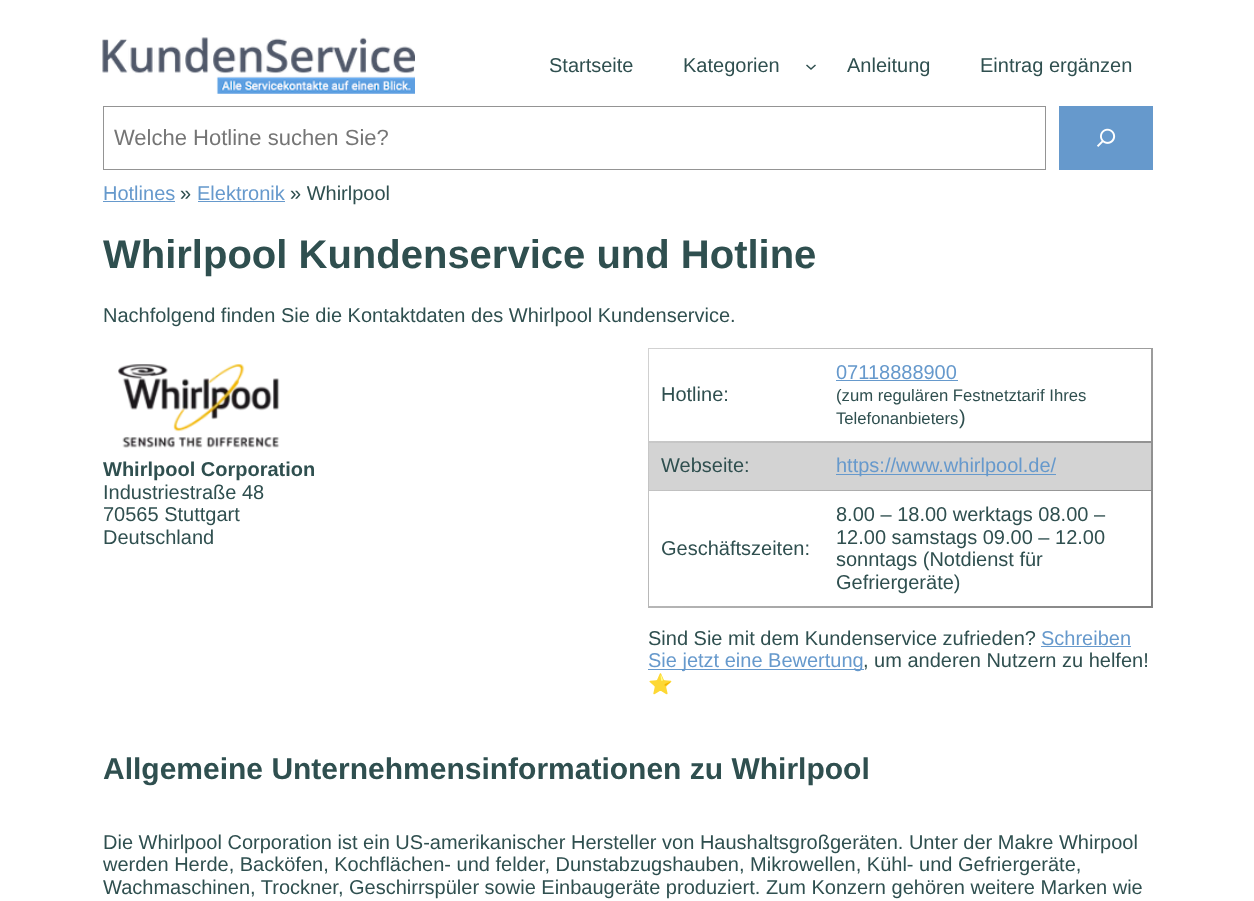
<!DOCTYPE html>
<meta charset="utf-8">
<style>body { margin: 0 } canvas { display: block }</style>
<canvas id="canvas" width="1254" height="901"></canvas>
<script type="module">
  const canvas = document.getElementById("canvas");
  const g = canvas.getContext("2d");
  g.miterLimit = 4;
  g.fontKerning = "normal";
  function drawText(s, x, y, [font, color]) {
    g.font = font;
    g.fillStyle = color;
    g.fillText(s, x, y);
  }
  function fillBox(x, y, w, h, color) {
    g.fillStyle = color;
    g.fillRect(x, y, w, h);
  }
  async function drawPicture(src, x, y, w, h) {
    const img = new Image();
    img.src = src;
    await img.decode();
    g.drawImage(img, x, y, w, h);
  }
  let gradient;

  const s1 = ["20px Liberation Sans", "#2F4F4F"];
  const s2 = ["22px Liberation Sans", "#757575"];
  const s3 = ["20px Liberation Sans", "#6699CC"];
  const s4 = ["bold 40px Liberation Sans", "#2F4F4F"];
  const s5 = ["bold 20px Liberation Sans", "#2F4F4F"];
  const s6 = ["16.7px Liberation Sans", "#2F4F4F"];
  const s7 = ["20px Noto Color Emoji", "#2F4F4F"];
  const s8 = ["bold 30px Liberation Sans", "#2F4F4F"];

  fillBox(0, 0, 1254, 901, "#FFFFFF");
  await drawPicture("pic1.png", 102, 37, 313, 57);
  drawText("Startseite", 549, 72, s1);
  drawText("Kategorien", 683, 72, s1);
  g.beginPath();
  g.moveTo(806.5, 65);
  g.lineTo(811, 69);
  g.lineTo(815.5, 65);
  g.strokeStyle = "#2F4F4F";
  g.lineWidth = 1.5;
  g.stroke();
  drawText("Anleitung", 847, 72, s1);
  drawText("Eintrag ergänzen", 980, 72, s1);
  g.strokeStyle = "#949494";
  g.lineWidth = 1;
  g.strokeRect(103.5, 106.5, 942, 63);
  drawText("Welche Hotline suchen Sie?", 114, 145, s2);
  fillBox(1059, 106, 94, 64, "#6699CC");
  await drawPicture("pic2.png", 1097, 128, 19, 19);
  drawText("Hotlines", 103, 200, s3);
  fillBox(103, 201, 72, 1, "#6699CC");
  drawText("»", 180, 200, s1);
  drawText("Elektronik", 197, 200, s3);
  fillBox(198, 201, 87, 1, "#6699CC");
  drawText("» Whirlpool", 290, 200, s1);
  drawText("Whirlpool Kundenservice und Hotline", 103, 268, s4);
  drawText("Nachfolgend finden Sie die Kontaktdaten des Whirlpool Kundenservice.", 103, 322, s1);
  await drawPicture("pic3.png", 118, 364, 162, 84);
  drawText("Whirlpool Corporation", 103, 476, s5);
  drawText("Industriestraße 48", 103, 499, s1);
  drawText("70565 Stuttgart", 103, 521, s1);
  drawText("Deutschland", 103, 544, s1);
  gradient = g.createLinearGradient(709, 286, 1091, 669);
  gradient.addColorStop(0, "#D3D3D3");
  gradient.addColorStop(1, "#808080");
  g.fillStyle = gradient;
  g.fillRect(648, 348, 505, 260);
  fillBox(649, 349, 502, 92, "#FFFFFF");
  drawText("Hotline:", 661, 401, s1);
  drawText("07118888900", 836, 379, s3);
  fillBox(836, 380, 122, 1, "#6699CC");
  drawText("(zum regulären Festnetztarif Ihres", 836, 401, s6);
  drawText("Telefonanbieters", 836, 424, s6);
  drawText(")", 959, 424, s1);
  fillBox(649, 443, 502, 47, "#D3D3D3");
  drawText("Webseite:", 661, 472, s1);
  fillBox(836, 474, 220, 1, "#6699CC");
  drawText("https://www.whirlpool.de/", 836, 472, s3);
  fillBox(649, 491, 502, 115, "#FFFFFF");
  drawText("Geschäftszeiten:", 661, 555, s1);
  drawText("8.00 – 18.00 werktags 08.00 –", 836, 521, s1);
  drawText("12.00 samstags 09.00 – 12.00", 836, 544, s1);
  drawText("sonntags (Notdienst für", 836, 566, s1);
  drawText("Gefriergeräte)", 836, 589, s1);
  drawText("Sind Sie mit dem Kundenservice zufrieden?", 648, 645, s1);
  drawText("Schreiben", 1041, 645, s3);
  fillBox(1041, 646, 90, 1, "#6699CC");
  fillBox(648, 669, 216, 1, "#6699CC");
  drawText("Sie jetzt eine Bewertung", 648, 667, s3);
  drawText(", um anderen Nutzern zu helfen!", 863, 667, s1);
  drawText("⭐️", 648, 691, s7);
  drawText("Allgemeine Unternehmensinformationen zu Whirlpool", 103, 779, s8);
  drawText("Die Whirlpool Corporation ist ein US-amerikanischer Hersteller von Haushaltsgroßgeräten. Unter der Makre Whirpool", 103, 849, s1);
  drawText("werden Herde, Backöfen, Kochflächen- und felder, Dunstabzugshauben, Mikrowellen, Kühl- und Gefriergeräte,", 103, 871, s1);
  drawText("Wachmaschinen, Trockner, Geschirrspüler sowie Einbaugeräte produziert. Zum Konzern gehören weitere Marken wie", 103, 894, s1);
</script>
